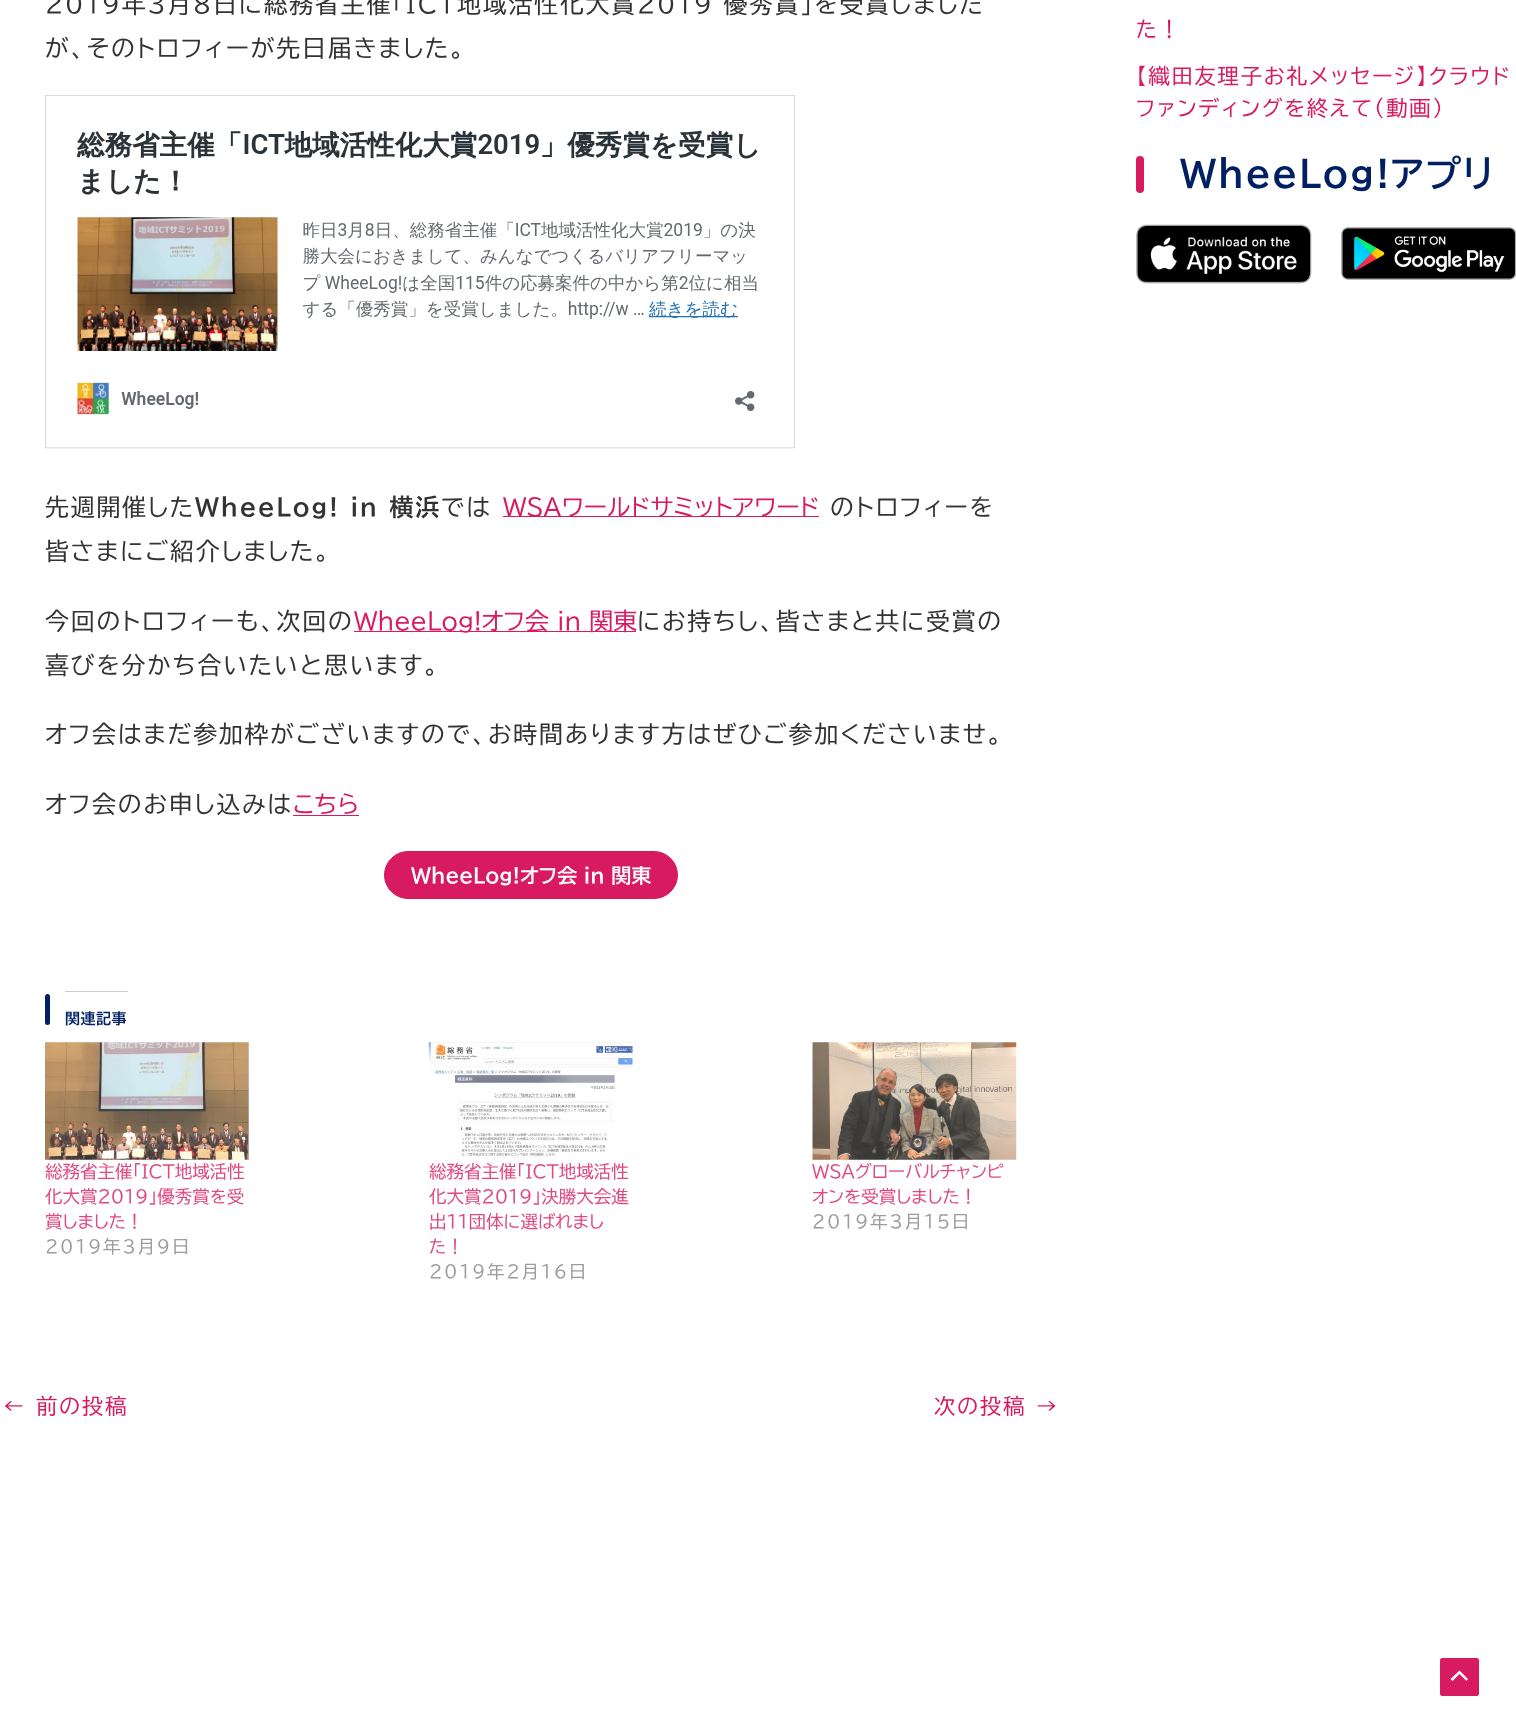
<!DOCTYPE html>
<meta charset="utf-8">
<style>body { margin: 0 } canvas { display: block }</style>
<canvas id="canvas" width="1516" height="1733"></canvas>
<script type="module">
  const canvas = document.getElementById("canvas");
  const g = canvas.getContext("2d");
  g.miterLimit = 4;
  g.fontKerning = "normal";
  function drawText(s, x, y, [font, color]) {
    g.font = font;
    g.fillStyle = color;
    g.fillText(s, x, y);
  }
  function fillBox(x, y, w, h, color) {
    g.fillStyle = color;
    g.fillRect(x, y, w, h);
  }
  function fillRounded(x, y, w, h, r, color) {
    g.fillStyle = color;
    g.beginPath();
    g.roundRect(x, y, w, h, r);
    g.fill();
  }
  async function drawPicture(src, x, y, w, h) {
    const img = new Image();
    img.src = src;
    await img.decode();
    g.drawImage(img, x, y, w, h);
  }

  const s1 = ["23.9px BIZ UDPGothic", "#333333"];
  const s2 = ["bold 23.9px BIZ UDPGothic", "#333333"];
  const s3 = ["23.9px BIZ UDPGothic", "#D81B60"];
  const s4 = ["bold 20px BIZ UDPGothic", "#FFFFFF"];
  const s5 = ["bold 15px BIZ UDPGothic", "#002063"];
  const s6 = ["17.5px BIZ UDPGothic", "#E04980"];
  const s7 = ["17.5px BIZ UDPGothic", "#9D9D9D"];
  const s8 = ["21.25px BIZ UDPGothic", "#D81B60"];
  const s9 = ["bold 36.1px BIZ UDPGothic", "#002063"];

  fillBox(0, 0, 1516, 1733, "#FFFFFF");
  g.letterSpacing = "1.8px";
  drawText("2019年3月8日に総務省主催「ICT地域活性化大賞2019 優秀賞」を受賞しました", 45, 13, s1);
  drawText("が、そのトロフィーが先日届きました。", 45, 57, s1);
  await drawPicture("pic1.png", 45, 95, 750, 354);
  drawText("先週開催した", 45, 516, s1);
  g.wordSpacing = "1px";
  drawText("WheeLog! in 横浜", 195, 516, s2);
  g.wordSpacing = "0px";
  drawText("では", 441, 516, s1);
  fillBox(503, 516, 316, 1, "#D81B60");
  g.letterSpacing = "0px";
  drawText("WSAワールドサミットアワード", 503, 516, s3);
  g.letterSpacing = "1.8px";
  drawText("のトロフィーを", 830, 516, s1);
  drawText("皆さまにご紹介しました。", 45, 560, s1);
  drawText("今回のトロフィーも、次回の", 45, 630, s1);
  fillBox(354, 631, 282, 1, "#D81B60");
  g.letterSpacing = "0px";
  drawText("WheeLog!オフ会 in 関東", 354, 630, s3);
  g.letterSpacing = "1.8px";
  drawText("にお持ちし、皆さまと共に受賞の", 637, 630, s1);
  drawText("喜びを分かち合いたいと思います。", 45, 674, s1);
  drawText("オフ会はまだ参加枠がございますので、お時間あります方はぜひご参加くださいませ。", 45, 743, s1);
  drawText("オフ会のお申し込みは", 45, 813, s1);
  g.letterSpacing = "0px";
  drawText("こちら", 293, 813, s3);
  fillBox(293, 815, 66, 1, "#D81B60");
  g.beginPath();
  g.roundRect(384.5, 851.5, 293, 47, 23.5);
  g.fill();
  g.strokeStyle = "#D81B60";
  g.stroke();
  drawText("WheeLog!オフ会 in 関東", 411, 883, s4);
  fillRounded(45, 994, 5, 31, 2.5, "#002063");
  fillBox(65, 991, 63, 1, "#CCCCCC");
  g.letterSpacing = "0.5px";
  drawText("関連記事", 65, 1024, s5);
  await drawPicture("pic2.png", 45, 1042, 204, 118);
  g.letterSpacing = "0px";
  drawText("総務省主催「ICT地域活性", 45, 1178, s6);
  drawText("化大賞2019」優秀賞を受", 45, 1203, s6);
  drawText("賞しました！", 45, 1228, s6);
  g.letterSpacing = "1.8px";
  drawText("2019年3月9日", 45, 1253, s7);
  await drawPicture("pic3.png", 428, 1042, 205, 115);
  g.letterSpacing = "0px";
  drawText("総務省主催「ICT地域活性", 429, 1178, s6);
  drawText("化大賞2019」決勝大会進", 429, 1203, s6);
  drawText("出11団体に選ばれまし", 429, 1228, s6);
  drawText("た！", 429, 1253, s6);
  g.letterSpacing = "1.8px";
  drawText("2019年2月16日", 429, 1278, s7);
  await drawPicture("pic4.png", 812, 1042, 205, 118);
  g.letterSpacing = "0px";
  drawText("WSAグローバルチャンピ", 812, 1178, s6);
  drawText("オンを受賞しました！", 812, 1203, s6);
  g.letterSpacing = "1.8px";
  drawText("2019年3月15日", 812, 1228, s7);
  drawText("←", 3, 1414, s8);
  drawText("前の投稿", 36, 1414, s8);
  drawText("次の投稿", 934, 1414, s8);
  drawText("→", 1036, 1414, s8);
  drawText("た！", 1136, 37, s8);
  drawText("【織田友理子お礼メッセージ】クラウド", 1136, 84, s8);
  drawText("ファンディングを終えて（動画）", 1136, 116, s8);
  fillRounded(1136, 156, 8, 37, 4, "#D81B60");
  drawText("WheeLog!アプリ", 1180, 187, s9);
  await drawPicture("pic5.png", 1136, 224, 176, 60);
  await drawPicture("pic6.png", 1341, 227, 175, 53);
  fillRounded(1440, 1658, 39, 38, 2.5, "#D81B60");
  g.fillStyle = "#FFFFFF";
  g.beginPath();
  g.moveTo(1468, 1679);
  g.lineTo(1459.5, 1670.5);
  g.lineTo(1450.5, 1679);
  g.lineTo(1452.5, 1681);
  g.lineTo(1459.5, 1674);
  g.lineTo(1466.5, 1681);
  g.closePath();
  g.fill();
</script>
